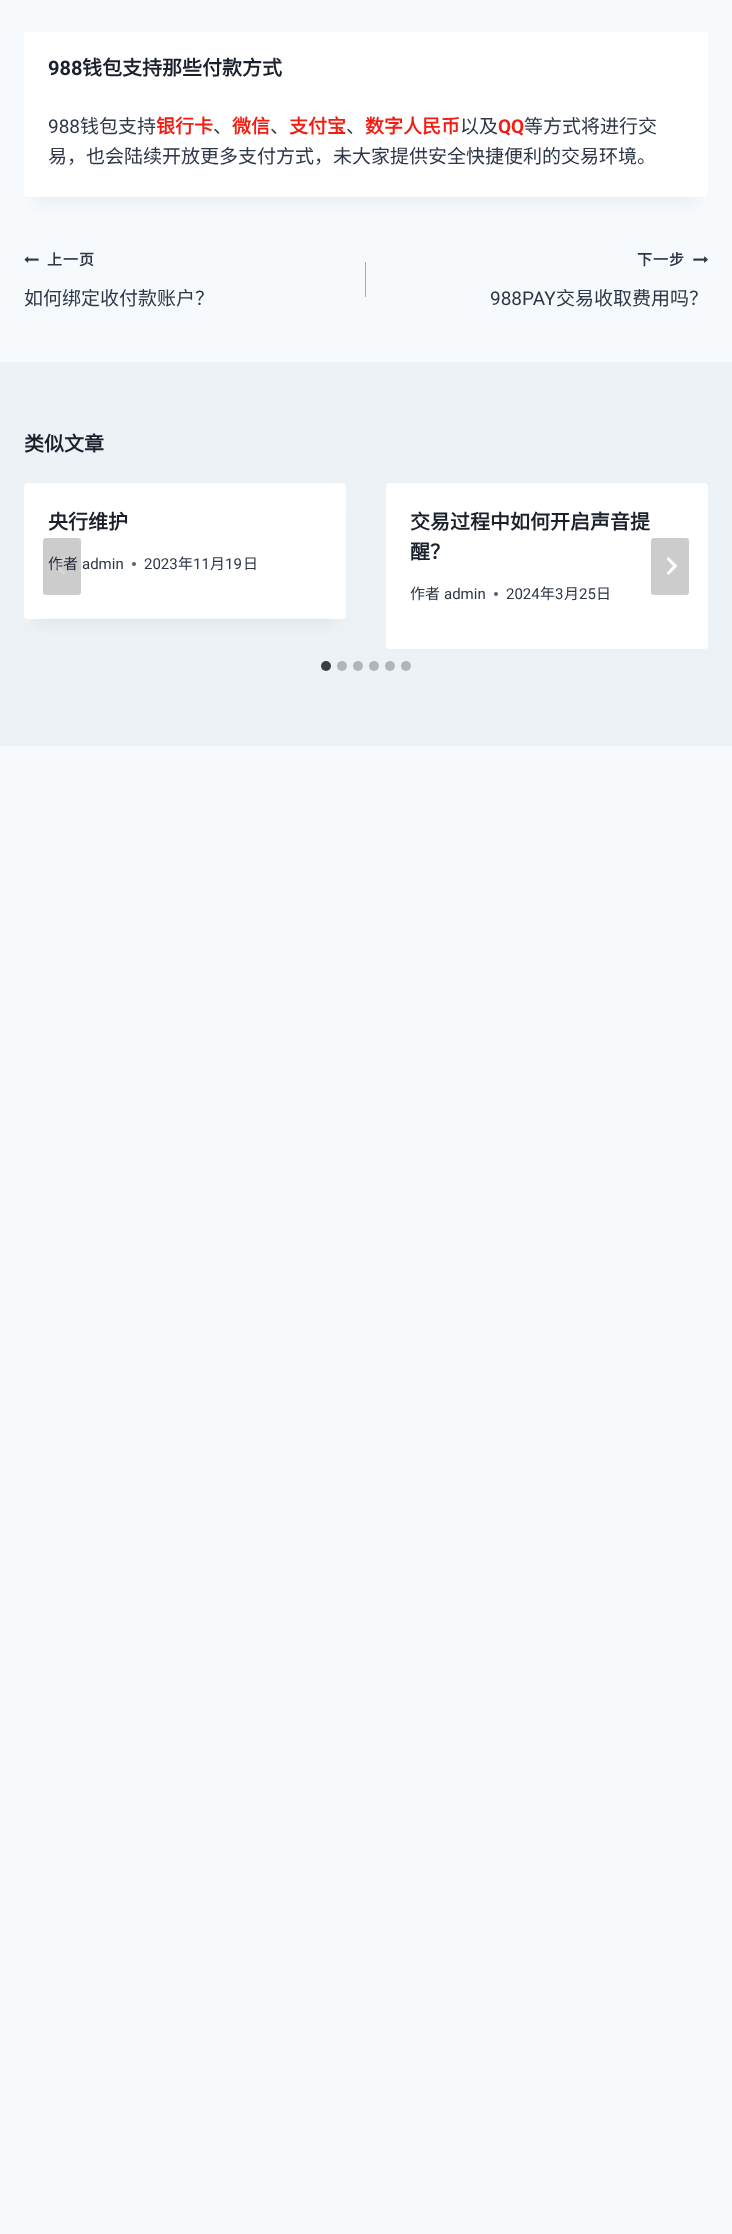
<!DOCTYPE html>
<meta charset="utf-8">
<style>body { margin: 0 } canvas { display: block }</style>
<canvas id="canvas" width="732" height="2234"></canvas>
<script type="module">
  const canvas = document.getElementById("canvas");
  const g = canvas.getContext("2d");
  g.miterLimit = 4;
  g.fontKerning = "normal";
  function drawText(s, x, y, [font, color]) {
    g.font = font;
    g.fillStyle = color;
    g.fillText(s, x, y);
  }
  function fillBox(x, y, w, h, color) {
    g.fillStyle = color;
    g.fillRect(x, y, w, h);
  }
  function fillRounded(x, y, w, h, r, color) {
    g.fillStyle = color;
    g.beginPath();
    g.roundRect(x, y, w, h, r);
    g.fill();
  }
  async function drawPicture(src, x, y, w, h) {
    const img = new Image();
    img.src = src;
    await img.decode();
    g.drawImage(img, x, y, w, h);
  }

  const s1 = ["bold 20px Roboto", "#1A202C"];
  const s2 = ["bold 20px Noto Sans CJK SC", "#1A202C"];
  const s3 = ["19px Roboto", "#2D3748"];
  const s4 = ["19px Noto Sans CJK SC", "#2D3748"];
  const s5 = ["bold 19px Noto Sans CJK SC", "#F21C11"];
  const s6 = ["bold 19px Roboto", "#F21C11"];
  const s7 = ["bold 15px Noto Sans CJK SC", "#2D3748"];
  const s8 = ["15px Noto Sans CJK SC", "#2D3748"];
  const s9 = ["15px Roboto", "#2D3748"];

  fillBox(0, 0, 732, 2234, "#F7FAFC");
  g.fillStyle = "rgba(0, 0, 0, 0.05)";
  g.filter = "blur(7.5px)";
  g.beginPath();
  g.rect(34, 57, 664, 145);
  g.fill();
  g.filter = "none";
  fillRounded(24, 32, 684, 165, 4, "#FFFFFF");
  drawText("988", 48, 75, s1);
  drawText("钱包支持那些付款方式", 82, 75, s2);
  drawText("988", 48, 133, s3);
  drawText("钱包支持", 80, 133, s4);
  drawText("银行卡", 156, 133, s5);
  drawText("、", 213, 133, s4);
  drawText("微信", 232, 133, s5);
  drawText("、", 270, 133, s4);
  drawText("支付宝", 289, 133, s5);
  drawText("、", 346, 133, s4);
  drawText("数字人民币", 365, 133, s5);
  drawText("以及", 460, 133, s4);
  drawText("QQ", 498, 133, s6);
  drawText("等方式将进行交", 524, 133, s4);
  drawText("易，也会陆续开放更多支付方式，未大家提供安全快捷便利的交易环境。", 48, 163, s4);
  await drawPicture("pic1.png", 24, 256, 15, 7);
  g.letterSpacing = "1px";
  drawText("上一页", 47, 265, s7);
  g.letterSpacing = "0px";
  drawText("如何绑定收付款账户？", 24, 305, s4);
  fillBox(365, 262, 1, 35, "#A0AEC0");
  g.letterSpacing = "1px";
  drawText("下一步", 637, 265, s7);
  await drawPicture("pic2.png", 693, 256, 15, 7);
  g.letterSpacing = "0px";
  drawText("988PAY", 490, 305, s3);
  drawText("交易收取费用吗？", 556, 305, s4);
  fillBox(0, 362, 732, 384, "#EDF2F7");
  drawText("类似文章", 24, 451, s2);
  g.fillStyle = "rgba(0, 0, 0, 0.05)";
  g.filter = "blur(7.5px)";
  g.beginPath();
  g.rect(34, 508, 302, 116);
  g.fill();
  g.filter = "none";
  fillRounded(24, 483, 322, 136, 4, "#FFFFFF");
  drawText("央行维护", 48, 529, s2);
  drawText("作者", 48, 569, s8);
  drawText("admin", 82, 569, s9);
  g.fillStyle = "#575F6D";
  g.beginPath();
  g.arc(134, 564, 2, 0, Math.PI * 2);
  g.fill();
  drawText("2023", 144, 569, s9);
  drawText("年", 178, 569, s8);
  drawText("11", 193, 569, s9);
  drawText("月", 210, 569, s8);
  drawText("19", 225, 569, s9);
  drawText("日", 243, 569, s8);
  fillRounded(386, 483, 322, 166, 4, "#FFFFFF");
  drawText("交易过程中如何开启声音提", 410, 529, s2);
  drawText("醒？", 410, 559, s2);
  drawText("作者", 410, 599, s8);
  drawText("admin", 444, 599, s9);
  g.fillStyle = "#575F6D";
  g.beginPath();
  g.arc(496, 594, 2, 0, Math.PI * 2);
  g.fill();
  drawText("2024", 506, 599, s9);
  drawText("年", 540, 599, s8);
  drawText("3", 555, 599, s9);
  drawText("月", 564, 599, s8);
  drawText("25", 579, 599, s9);
  drawText("日", 596, 599, s8);
  fillRounded(43, 538, 38, 57, 3, "rgba(0, 0, 0, 0.2)");
  g.fillStyle = "rgba(255, 255, 255, 0.25)";
  g.beginPath();
  g.moveTo(63.5, 557);
  g.lineTo(65.5, 559);
  g.lineTo(59, 566);
  g.lineTo(65.5, 573);
  g.lineTo(63.5, 575);
  g.lineTo(54.5, 566);
  g.closePath();
  g.fill();
  fillRounded(651, 538, 38, 57, 3, "#CCCCCC");
  g.fillStyle = "#FFFFFF";
  g.beginPath();
  g.moveTo(668.5, 557);
  g.lineTo(666.5, 559);
  g.lineTo(673, 566);
  g.lineTo(666.5, 573);
  g.lineTo(668.5, 575);
  g.lineTo(677.5, 566);
  g.closePath();
  g.fill();
  g.fillStyle = "#3B3D3E";
  g.beginPath();
  g.arc(326, 666, 5, 0, Math.PI * 2);
  g.fill();
  g.fillStyle = "#B2B6B9";
  g.beginPath();
  g.arc(342, 666, 5, 0, Math.PI * 2);
  g.fill();
  g.beginPath();
  g.arc(358, 666, 5, 0, Math.PI * 2);
  g.fill();
  g.beginPath();
  g.arc(374, 666, 5, 0, Math.PI * 2);
  g.fill();
  g.beginPath();
  g.arc(390, 666, 5, 0, Math.PI * 2);
  g.fill();
  g.beginPath();
  g.arc(406, 666, 5, 0, Math.PI * 2);
  g.fill();
</script>
